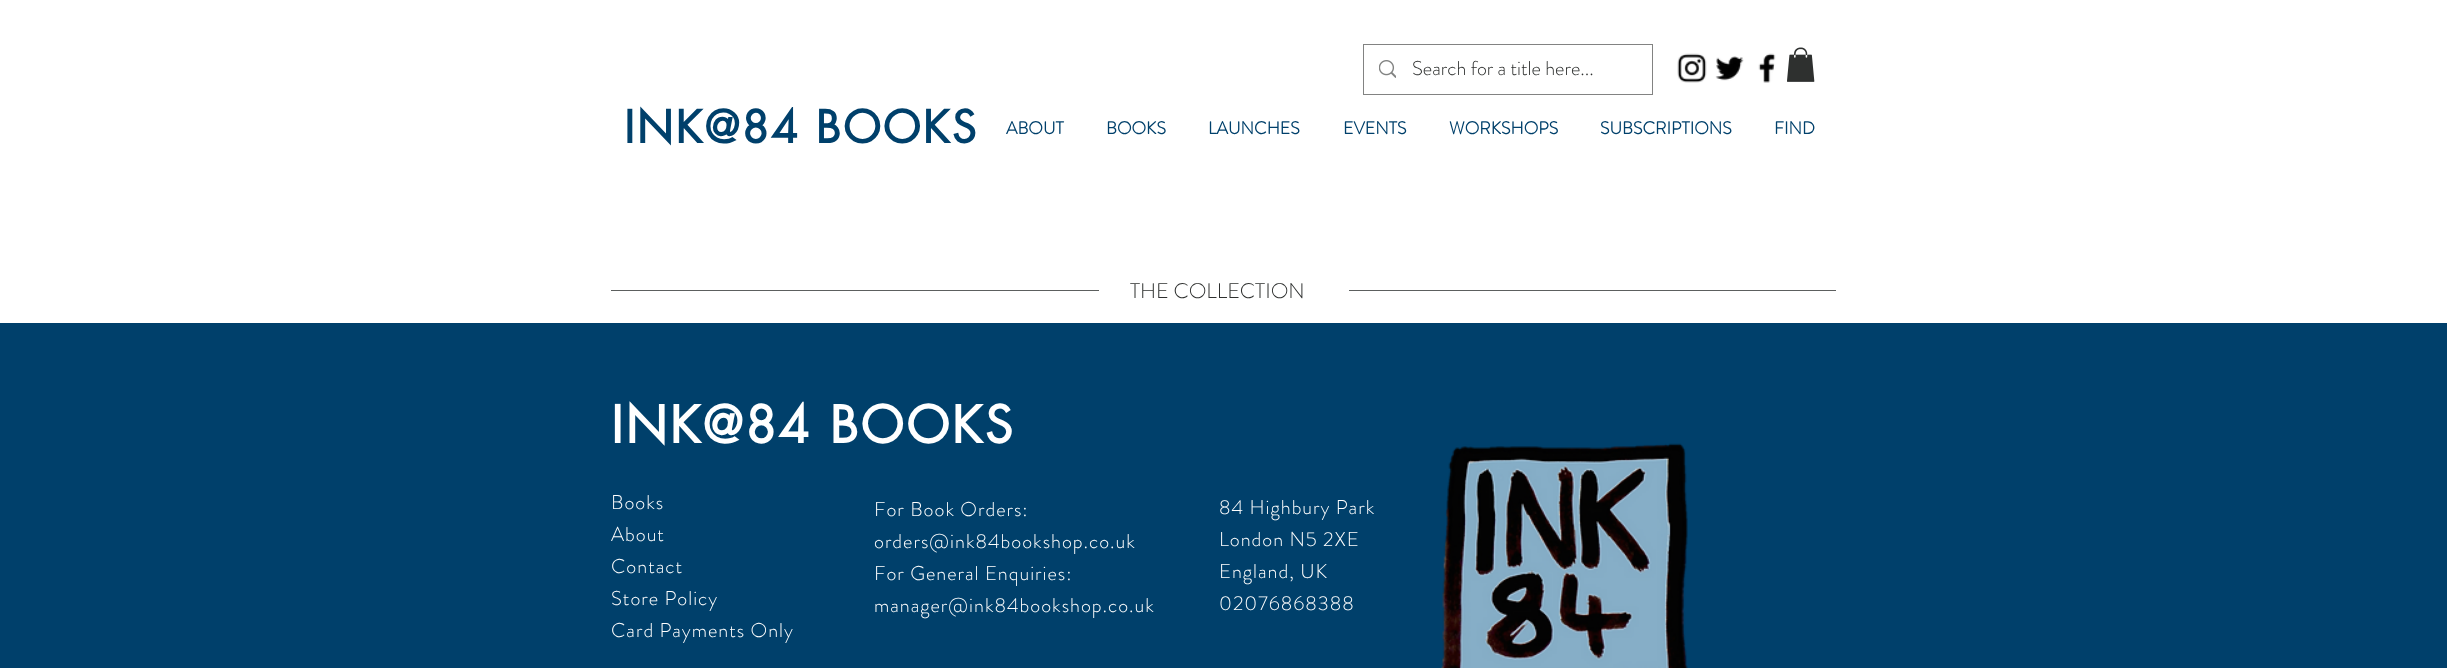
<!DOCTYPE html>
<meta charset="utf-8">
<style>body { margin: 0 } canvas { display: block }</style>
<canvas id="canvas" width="2447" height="668"></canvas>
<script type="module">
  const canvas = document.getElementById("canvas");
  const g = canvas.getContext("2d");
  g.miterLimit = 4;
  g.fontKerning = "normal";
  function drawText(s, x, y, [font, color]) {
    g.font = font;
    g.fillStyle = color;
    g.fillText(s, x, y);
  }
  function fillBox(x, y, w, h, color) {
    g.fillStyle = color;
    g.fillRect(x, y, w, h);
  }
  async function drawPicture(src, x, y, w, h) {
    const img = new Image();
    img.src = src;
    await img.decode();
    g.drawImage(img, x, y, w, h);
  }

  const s1 = ["300 20px 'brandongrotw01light'", "#2E302F"];
  const s2 = ["bold 43.75px futura", "#00406B"];
  const s3 = ["bold 17.5px 'brandongrotw01light'", "#00406B"];
  const s4 = ["300 21.25px 'brandongrotw01light'", "#2E302F"];
  const s5 = ["bold 50px futura", "#FFFFFF"];
  const s6 = ["300 20px 'brandongrotw01light'", "#FFFFFF"];

  fillBox(0, 0, 2447, 668, "#FFFFFF");
  g.strokeStyle = "#828382";
  g.strokeRect(1363.5, 44.5, 289, 50);
  await drawPicture("pic1.png", 1379, 60, 17, 18);
  drawText("Search for a title here...", 1412, 75, s1);
  await drawPicture("pic2.png", 1677, 53, 30, 30);
  await drawPicture("pic3.png", 1715, 56, 29, 25);
  await drawPicture("pic4.png", 1758, 53, 18, 30);
  await drawPicture("pic5.png", 1787, 47, 28, 35);
  g.letterSpacing = "2.25px";
  drawText("INK@84 BOOKS", 624, 143, s2);
  g.letterSpacing = "0px";
  drawText("ABOUT", 1006, 134, s3);
  drawText("BOOKS", 1106, 134, s3);
  drawText("LAUNCHES", 1208, 134, s3);
  drawText("EVENTS", 1343, 134, s3);
  drawText("WORKSHOPS", 1449, 134, s3);
  drawText("SUBSCRIPTIONS", 1600, 134, s3);
  drawText("FIND", 1774, 134, s3);
  fillBox(611, 290, 488, 1, "#5C5F5E");
  drawText("THE COLLECTION", 1130, 298, s4);
  fillBox(1349, 290, 487, 1, "#5C5F5E");
  fillBox(0, 323, 2447, 345, "#00406B");
  g.letterSpacing = "2.5px";
  drawText("INK@84 BOOKS", 611, 443, s5);
  g.letterSpacing = "1px";
  drawText("Books", 611, 509, s6);
  drawText("About", 611, 541, s6);
  drawText("Contact", 611, 573, s6);
  drawText("Store Policy", 611, 605, s6);
  drawText("Card Payments Only", 611, 637, s6);
  drawText("For Book Orders:", 874, 516, s6);
  drawText("orders@ink84bookshop.co.uk", 874, 548, s6);
  drawText("For General Enquiries:", 874, 580, s6);
  drawText("manager@ink84bookshop.co.uk", 874, 612, s6);
  drawText("84 Highbury Park", 1219, 514, s6);
  drawText("London N5 2XE", 1219, 546, s6);
  drawText("England, UK", 1219, 578, s6);
  drawText("02076868388", 1219, 610, s6);
  await drawPicture("pic6.png", 1441, 443, 247, 225);
</script>
